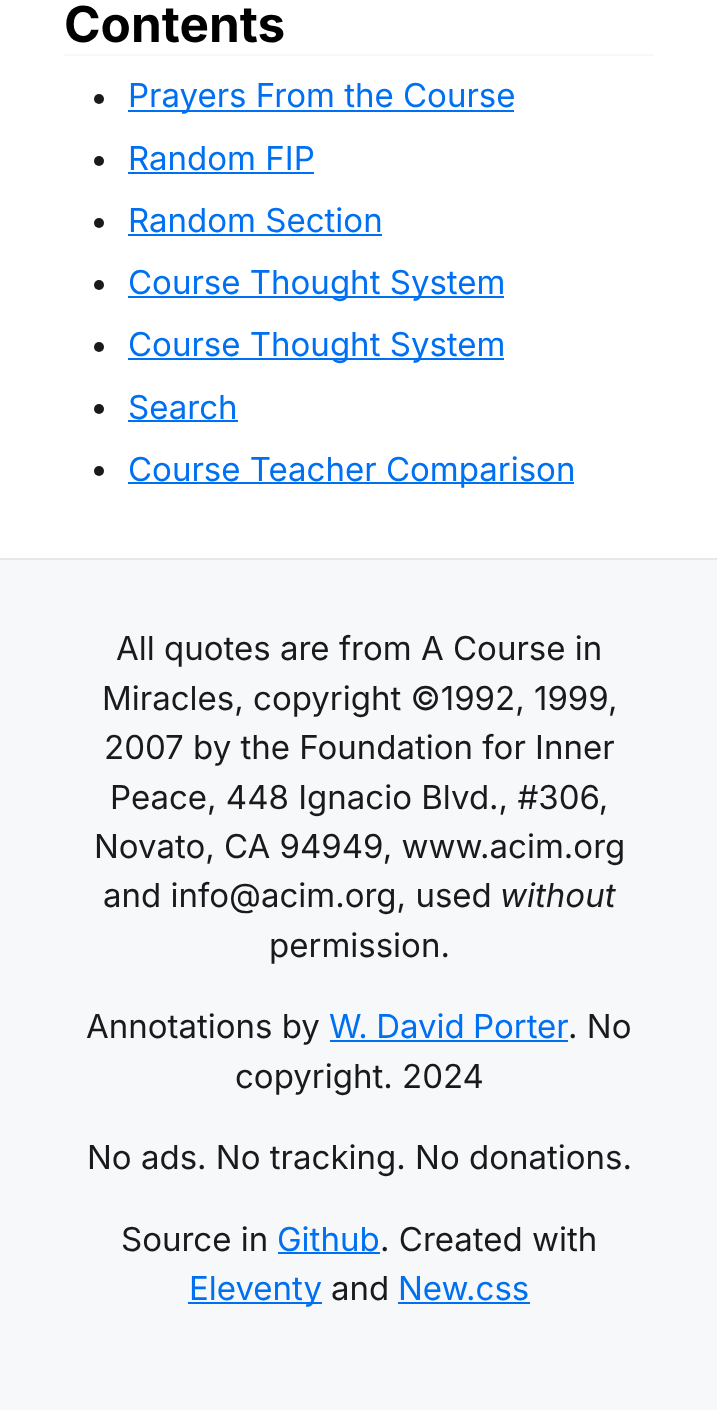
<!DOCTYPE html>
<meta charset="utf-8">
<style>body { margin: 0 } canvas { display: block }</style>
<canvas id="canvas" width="717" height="1410"></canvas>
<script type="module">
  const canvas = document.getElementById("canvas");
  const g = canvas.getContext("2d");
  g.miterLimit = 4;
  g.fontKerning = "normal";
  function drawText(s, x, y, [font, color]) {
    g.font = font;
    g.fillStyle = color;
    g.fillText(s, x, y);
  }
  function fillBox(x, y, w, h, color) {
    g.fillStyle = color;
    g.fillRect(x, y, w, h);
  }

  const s1 = ["bold 49.5px Inter", "#000000"];
  const s2 = ["33px Inter", "#0070F3"];
  const s3 = ["33px Inter", "#1A1A1A"];
  const s4 = ["italic 33px Inter", "#1A1A1A"];

  fillBox(0, 0, 717, 1410, "#FFFFFF");
  fillBox(64, 54, 590, 2, "#F6F8FA");
  drawText("Contents", 64, 42, s1);
  g.fillStyle = "#1A1A1A";
  g.beginPath();
  g.arc(99, 99, 5, 0, Math.PI * 2);
  g.fill();
  fillBox(128, 110, 386, 2, "#0070F3");
  drawText("Prayers From the Course", 128, 107, s2);
  g.fillStyle = "#1A1A1A";
  g.beginPath();
  g.arc(99, 161, 5, 0, Math.PI * 2);
  g.fill();
  drawText("Random FIP", 128, 170, s2);
  fillBox(128, 172, 186, 2, "#0070F3");
  g.fillStyle = "#1A1A1A";
  g.beginPath();
  g.arc(99, 223, 5, 0, Math.PI * 2);
  g.fill();
  drawText("Random Section", 128, 232, s2);
  fillBox(128, 234, 254, 2, "#0070F3");
  g.fillStyle = "#1A1A1A";
  g.beginPath();
  g.arc(99, 285, 5, 0, Math.PI * 2);
  g.fill();
  fillBox(128, 296, 376, 2, "#0070F3");
  drawText("Course Thought System", 128, 294, s2);
  g.fillStyle = "#1A1A1A";
  g.beginPath();
  g.arc(99, 347, 5, 0, Math.PI * 2);
  g.fill();
  fillBox(128, 358, 376, 2, "#0070F3");
  drawText("Course Thought System", 128, 356, s2);
  g.fillStyle = "#1A1A1A";
  g.beginPath();
  g.arc(99, 409, 5, 0, Math.PI * 2);
  g.fill();
  drawText("Search", 128, 419, s2);
  fillBox(128, 420, 110, 2, "#0070F3");
  g.fillStyle = "#1A1A1A";
  g.beginPath();
  g.arc(99, 471, 5, 0, Math.PI * 2);
  g.fill();
  fillBox(128, 482, 446, 2, "#0070F3");
  drawText("Course Teacher Comparison", 128, 481, s2);
  fillBox(0, 560, 717, 850, "#F6F8FA");
  fillBox(0, 558, 717, 2, "#E5E7EB");
  drawText("All quotes are from A Course in", 116, 660, s3);
  drawText("Miracles, copyright ©1992, 1999,", 102, 710, s3);
  drawText("2007 by the Foundation for Inner", 104, 759, s3);
  drawText("Peace, 448 Ignacio Blvd., #306,", 110, 809, s3);
  drawText("Novato, CA 94949, www.acim.org", 94, 858, s3);
  drawText("and info@acim.org, used", 103, 907, s3);
  drawText("without", 500, 907, s4);
  drawText("permission.", 269, 957, s3);
  drawText("Annotations by", 86, 1038, s3);
  g.wordSpacing = "-1px";
  drawText("W. David Porter", 329, 1038, s2);
  fillBox(330, 1040, 238, 2, "#0070F3");
  g.wordSpacing = "0px";
  drawText(". No", 568, 1038, s3);
  drawText("copyright. 2024", 235, 1088, s3);
  drawText("No ads. No tracking. No donations.", 87, 1169, s3);
  drawText("Source in", 121, 1251, s3);
  drawText("Github", 277, 1251, s2);
  fillBox(278, 1252, 102, 2, "#0070F3");
  drawText(". Created with", 380, 1251, s3);
  fillBox(188, 1302, 134, 2, "#0070F3");
  drawText("Eleventy", 189, 1300, s2);
  drawText("and", 331, 1300, s3);
  drawText("New.css", 398, 1300, s2);
  fillBox(398, 1302, 132, 2, "#0070F3");
</script>
